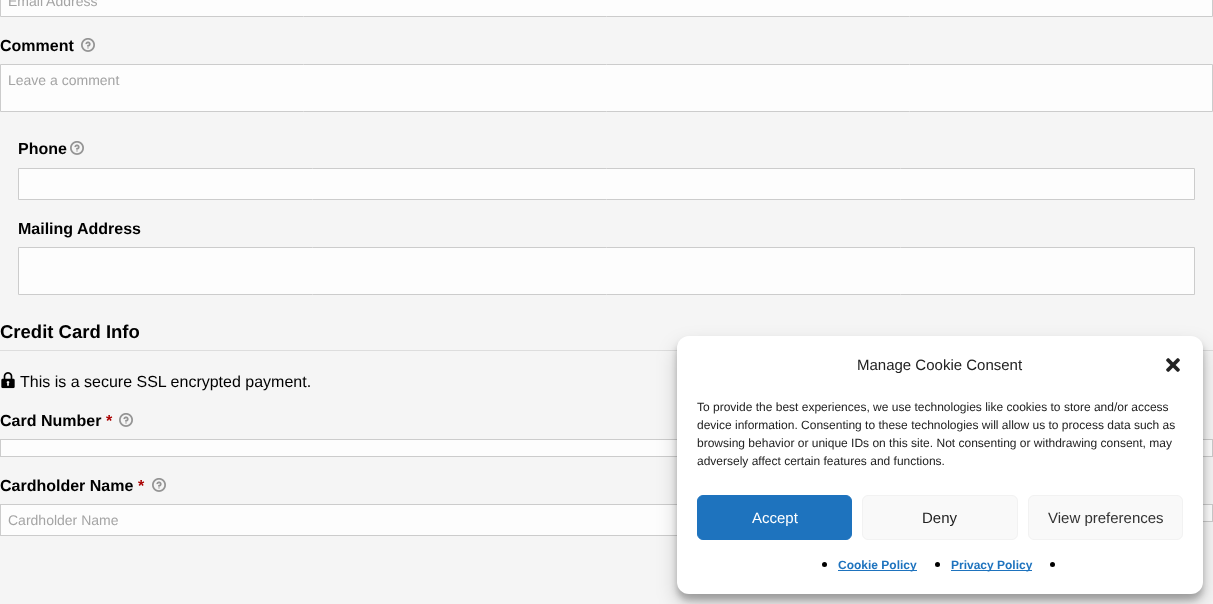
<!DOCTYPE html>
<meta charset="utf-8">
<style>body { margin: 0 } canvas { display: block }</style>
<canvas id="canvas" width="1213" height="604"></canvas>
<script type="module">
  const canvas = document.getElementById("canvas");
  const g = canvas.getContext("2d");
  g.miterLimit = 4;
  g.fontKerning = "normal";
  function drawText(s, x, y, [font, color]) {
    g.font = font;
    g.fillStyle = color;
    g.fillText(s, x, y);
  }
  function fillBox(x, y, w, h, color) {
    g.fillStyle = color;
    g.fillRect(x, y, w, h);
  }
  function fillRounded(x, y, w, h, r, color) {
    g.fillStyle = color;
    g.beginPath();
    g.roundRect(x, y, w, h, r);
    g.fill();
  }
  async function drawPicture(src, x, y, w, h) {
    const img = new Image();
    img.src = src;
    await img.decode();
    g.drawImage(img, x, y, w, h);
  }

  const s1 = ["14px Liberation Sans", "#A4A4A4"];
  const s2 = ["bold 16px Liberation Sans", "#000000"];
  const s3 = ["bold 18.5px Liberation Sans", "#000000"];
  const s4 = ["16px Liberation Sans", "#000000"];
  const s5 = ["bold 16px Liberation Sans", "#AA0000"];
  const s6 = ["15px Liberation Sans", "#222222"];
  const s7 = ["12px Liberation Sans", "#222222"];
  const s8 = ["15px Liberation Sans", "#FFFFFF"];
  const s9 = ["15px Liberation Sans", "#333333"];
  const s10 = ["bold 12px Liberation Sans", "#1E73BE"];

  fillBox(0, 0, 1213, 604, "#F5F5F5");
  g.fillStyle = "#FDFDFD";
  g.beginPath();
  g.rect(0.5, -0.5, 1212, 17);
  g.fill();
  g.strokeStyle = "#CCCCCC";
  g.stroke();
  drawText("Email Address", 8, 6, s1);
  drawText("Comment", 0, 51, s2);
  await drawPicture("pic1.png", 81, 38, 14, 14);
  g.fillStyle = "#FDFDFD";
  g.beginPath();
  g.rect(0.5, 64.5, 1212, 47);
  g.fill();
  g.stroke();
  drawText("Leave a comment", 8, 85, s1);
  drawText("Phone", 18, 154, s2);
  await drawPicture("pic1.png", 70, 141, 14, 14);
  g.fillStyle = "#FDFDFD";
  g.beginPath();
  g.rect(18.5, 168.5, 1176, 31);
  g.fill();
  g.stroke();
  drawText("Mailing Address", 18, 234, s2);
  g.fillStyle = "#FDFDFD";
  g.beginPath();
  g.rect(18.5, 247.5, 1176, 47);
  g.fill();
  g.stroke();
  fillBox(0, 350, 1213, 1, "#DDDDDD");
  drawText("Credit Card Info", 0, 338, s3);
  await drawPicture("pic2.png", 1, 372, 14, 17);
  drawText("This is a secure SSL encrypted payment.", 20, 387, s4);
  drawText("Card Number", 0, 426, s2);
  drawText("*", 106, 426, s5);
  await drawPicture("pic1.png", 119, 413, 14, 14);
  fillBox(1, 440, 676, 16, "#FDFDFD");
  g.strokeRect(0.5, 439.5, 797, 17);
  fillBox(1203, 440, 9, 16, "#FDFDFD");
  g.strokeRect(834.5, 439.5, 378, 17);
  drawText("Cardholder Name", 0, 491, s2);
  drawText("*", 138, 491, s5);
  await drawPicture("pic1.png", 152, 478, 14, 14);
  fillBox(1, 505, 676, 30, "#FDFDFD");
  g.strokeRect(0.5, 504.5, 797, 31);
  drawText("Cardholder Name", 8, 525, s1);
  fillBox(1203, 505, 9, 16, "#FDFDFD");
  g.strokeRect(834.5, 504.5, 378, 17);
  g.fillStyle = "rgba(0, 0, 0, 0.23)";
  g.filter = "blur(3px)";
  g.beginPath();
  g.roundRect(677, 342, 526, 258, 12);
  g.fill();
  g.filter = "none";
  g.fillStyle = "rgba(0, 0, 0, 0.19)";
  g.filter = "blur(10px)";
  g.beginPath();
  g.roundRect(677, 346, 526, 258, 12);
  g.fill();
  g.filter = "none";
  fillRounded(677, 336, 526, 258, 12, "#FFFFFF");
  drawText("Manage Cookie Consent", 857, 370, s6);
  await drawPicture("pic3.png", 1166, 358, 14, 14);
  drawText("To provide the best experiences, we use technologies like cookies to store and/or access", 697, 411, s7);
  drawText("device information. Consenting to these technologies will allow us to process data such as", 697, 429, s7);
  drawText("browsing behavior or unique IDs on this site. Not consenting or withdrawing consent, may", 697, 447, s7);
  drawText("adversely affect certain features and functions.", 697, 465, s7);
  g.fillStyle = "#1E73BE";
  g.beginPath();
  g.roundRect(697.5, 495.5, 154, 44, 5.5);
  g.fill();
  g.strokeStyle = "#1E73BE";
  g.stroke();
  drawText("Accept", 752, 523, s8);
  g.fillStyle = "#F9F9F9";
  g.beginPath();
  g.roundRect(862.5, 495.5, 155, 44, 5.5);
  g.fill();
  g.strokeStyle = "#F2F2F2";
  g.stroke();
  drawText("Deny", 922, 523, s6);
  g.fillStyle = "#F9F9F9";
  g.beginPath();
  g.roundRect(1028.5, 495.5, 154, 44, 5.5);
  g.fill();
  g.stroke();
  drawText("View preferences", 1048, 523, s9);
  g.fillStyle = "#000000";
  g.beginPath();
  g.arc(824.5, 564.5, 2.5, 0, Math.PI * 2);
  g.fill();
  fillBox(838, 570, 79, 1, "#1E73BE");
  drawText("Cookie Policy", 838, 569, s10);
  g.fillStyle = "#000000";
  g.beginPath();
  g.arc(937.5, 564.5, 2.5, 0, Math.PI * 2);
  g.fill();
  fillBox(951, 570, 81, 1, "#1E73BE");
  drawText("Privacy Policy", 951, 569, s10);
  g.fillStyle = "#000000";
  g.beginPath();
  g.arc(1052.5, 564.5, 2.5, 0, Math.PI * 2);
  g.fill();
</script>
